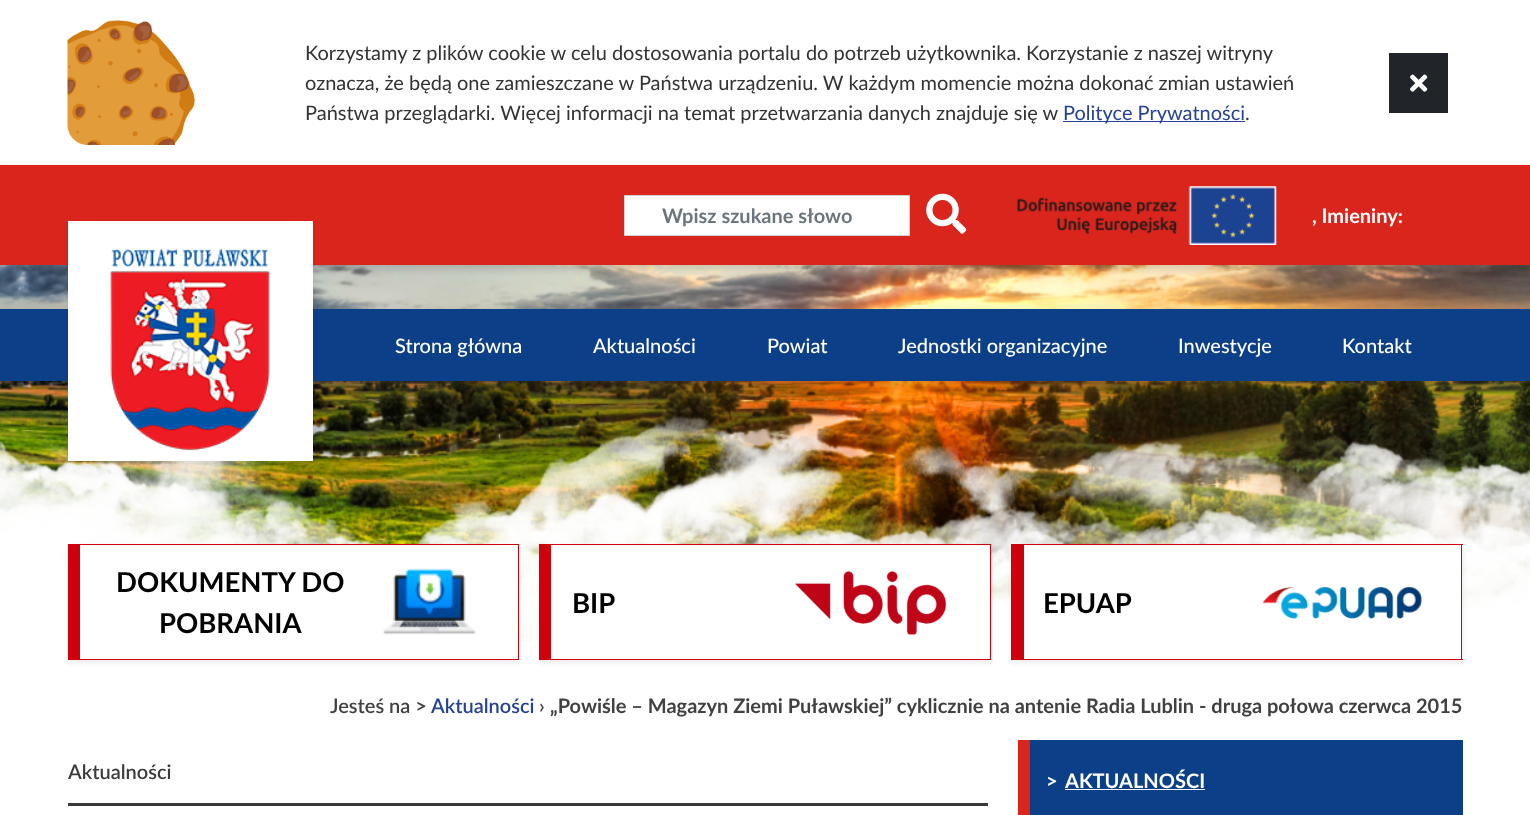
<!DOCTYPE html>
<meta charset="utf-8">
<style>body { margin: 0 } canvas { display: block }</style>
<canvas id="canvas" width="1530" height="815"></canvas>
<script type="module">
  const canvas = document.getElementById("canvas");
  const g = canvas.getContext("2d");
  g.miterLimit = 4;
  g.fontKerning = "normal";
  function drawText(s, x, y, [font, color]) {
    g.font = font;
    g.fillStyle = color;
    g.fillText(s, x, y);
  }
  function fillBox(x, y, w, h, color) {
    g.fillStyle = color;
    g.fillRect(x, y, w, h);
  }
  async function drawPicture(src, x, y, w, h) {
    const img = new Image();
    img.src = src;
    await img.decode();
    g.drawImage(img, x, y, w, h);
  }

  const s1 = ["20px Lato", "#333333"];
  const s2 = ["20px Lato", "#274295"];
  const s3 = ["bold 20px Lato", "#6C757D"];
  const s4 = ["bold 20px Lato", "#FFFFFF"];
  const s5 = ["500 20px Lato", "#FFFFFF"];
  const s6 = ["bold 27.5px Lato", "#000000"];
  const s7 = ["600 20px Lato", "#414141"];
  const s8 = ["600 20px Lato", "#274295"];
  const s9 = ["bold 20px Lato", "#414141"];
  const s10 = ["600 20px Lato", "#3B3B3B"];

  fillBox(0, 0, 1530, 815, "#FFFFFF");
  await drawPicture("pic3.png", 0, 265, 1530, 377);
  g.fillStyle = "rgba(0, 0, 0, 0.16)";
  g.filter = "blur(4px)";
  g.beginPath();
  g.rect(0, 169, 1530, 100);
  g.fill();
  g.filter = "none";
  fillBox(0, 163, 1530, 2, "#FFFFFF");
  await drawPicture("pic1.png", 67, 20, 128, 125);
  drawText("Korzystamy z plików cookie w celu dostosowania portalu do potrzeb użytkownika.", 305, 60, s1);
  drawText("Korzystanie z naszej witryny", 1026, 60, s1);
  drawText("oznacza, że będą one zamieszczane w Państwa urządzeniu. W każdym momencie można dokonać zmian ustawień", 305, 90, s1);
  drawText("Państwa przeglądarki. Więcej informacji na temat przetwarzania danych znajduje się w", 305, 120, s1);
  fillBox(1063, 121, 182, 1, "#274295");
  drawText("Polityce Prywatności", 1063, 120, s2);
  drawText(".", 1245, 120, s1);
  fillBox(1389, 53, 59, 60, "#212529");
  await drawPicture("pic2.png", 1410, 74, 18, 18);
  fillBox(0, 165, 1530, 100, "#DA251D");
  g.fillStyle = "#FFFFFF";
  g.beginPath();
  g.rect(624.5, 195.5, 285, 40);
  g.fill();
  g.strokeStyle = "#CED4DA";
  g.stroke();
  drawText("Wpisz szukane słowo", 662, 223, s3);
  await drawPicture("pic4.png", 926, 193, 41, 41);
  await drawPicture("pic5.png", 1017, 186, 260, 59);
  drawText(", Imieniny:", 1312, 223, s4);
  g.fillStyle = "rgba(0, 0, 0, 0.16)";
  g.filter = "blur(4px)";
  g.beginPath();
  g.rect(0, 313, 1530, 72);
  g.fill();
  g.filter = "none";
  fillBox(0, 309, 1530, 72, "#0B3F88");
  g.fillStyle = "rgba(0, 0, 0, 0.07)";
  g.filter = "blur(2.5px)";
  g.beginPath();
  g.rect(68, 224, 245, 240);
  g.fill();
  g.filter = "none";
  fillBox(68, 221, 245, 240, "#FFFFFF");
  await drawPicture("pic6.png", 110, 248, 160, 203);
  drawText("Strona główna", 395, 353, s5);
  drawText("Aktualności", 593, 353, s5);
  drawText("Powiat", 767, 353, s5);
  drawText("Jednostki organizacyjne", 898, 353, s5);
  drawText("Inwestycje", 1178, 353, s5);
  drawText("Kontakt", 1342, 353, s5);
  g.fillStyle = "rgba(0, 0, 0, 0.07)";
  g.filter = "blur(2.5px)";
  g.beginPath();
  g.rect(68, 546, 451, 117);
  g.fill();
  g.filter = "none";
  fillBox(80, 545, 438, 114, "#FFFFFF");
  fillBox(80, 544, 439, 1, "#CE000C");
  fillBox(518, 544, 1, 116, "#CE000C");
  fillBox(80, 659, 439, 1, "#CE000C");
  fillBox(68, 544, 12, 116, "#CE000C");
  drawText("DOKUMENTY DO", 116, 592, s6);
  drawText("POBRANIA", 159, 633, s6);
  await drawPicture("pic7.png", 382, 568, 94, 67);
  g.fillStyle = "rgba(0, 0, 0, 0.07)";
  g.filter = "blur(2.5px)";
  g.beginPath();
  g.rect(539, 546, 452, 117);
  g.fill();
  g.filter = "none";
  fillBox(551, 545, 439, 114, "#FFFFFF");
  fillBox(551, 544, 440, 1, "#CE000C");
  fillBox(990, 544, 1, 116, "#CE000C");
  fillBox(551, 659, 440, 1, "#CE000C");
  fillBox(539, 544, 12, 116, "#CE000C");
  drawText("BIP", 572, 613, s6);
  await drawPicture("pic8.png", 795, 570, 151, 65);
  g.fillStyle = "rgba(0, 0, 0, 0.07)";
  g.filter = "blur(2.5px)";
  g.beginPath();
  g.rect(1011, 546, 452, 117);
  g.fill();
  g.filter = "none";
  fillBox(1024, 545, 437, 114, "#FFFFFF");
  fillBox(1024, 544, 439, 1, "#CE000C");
  fillBox(1461, 544, 1, 116, "#CE000C");
  fillBox(1024, 659, 439, 1, "#CE000C");
  fillBox(1011, 544, 13, 116, "#CE000C");
  drawText("EPUAP", 1043, 613, s6);
  await drawPicture("pic9.png", 1262, 586, 160, 33);
  drawText("Jesteś na >", 330, 713, s7);
  drawText("Aktualności", 431, 713, s8);
  drawText("›", 539, 713, s7);
  drawText("„Powiśle – Magazyn Ziemi Puławskiej” cyklicznie na antenie Radia Lublin - druga połowa czerwca 2015", 550, 713, s9);
  fillBox(68, 803, 920, 3, "#373737");
  drawText("Aktualności", 68, 779, s10);
  fillBox(1030, 740, 433, 75, "#0B3F88");
  fillBox(1018, 740, 12, 75, "#DA251D");
  drawText(">", 1046, 788, s4);
  drawText("AKTUALNOŚCI", 1065, 788, s4);
  fillBox(1065, 789, 140, 1, "#FFFFFF");
</script>
